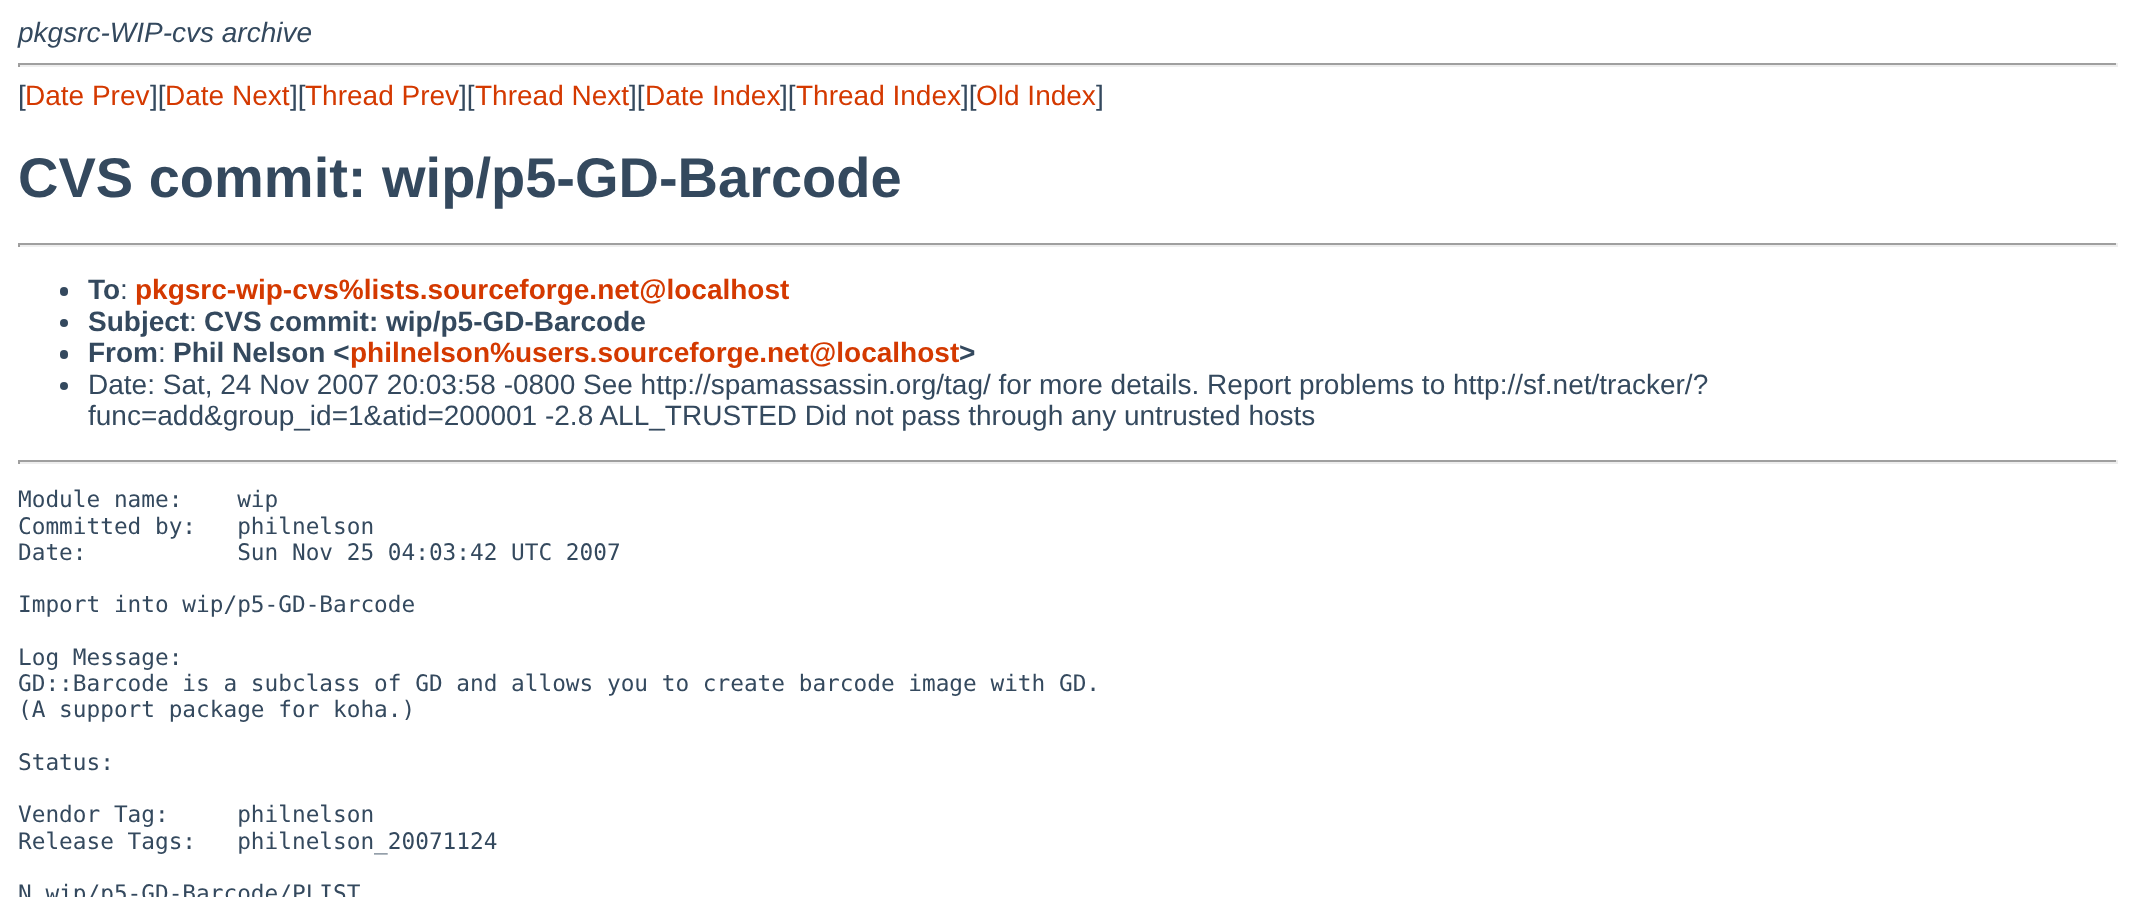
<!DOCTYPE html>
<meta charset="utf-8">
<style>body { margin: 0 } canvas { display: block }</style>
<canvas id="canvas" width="2146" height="897"></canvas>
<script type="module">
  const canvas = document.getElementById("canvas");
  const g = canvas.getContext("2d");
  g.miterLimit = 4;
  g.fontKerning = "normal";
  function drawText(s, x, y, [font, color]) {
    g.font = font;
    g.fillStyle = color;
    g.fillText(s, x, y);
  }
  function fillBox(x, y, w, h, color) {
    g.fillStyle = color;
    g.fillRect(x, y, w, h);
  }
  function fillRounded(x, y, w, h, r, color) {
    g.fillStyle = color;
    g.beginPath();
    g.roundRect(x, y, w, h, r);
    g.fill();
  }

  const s1 = ["italic 28px Liberation Sans", "#34495E"];
  const s2 = ["28px Liberation Sans", "#34495E"];
  const s3 = ["28px Liberation Sans", "#D43900"];
  const s4 = ["bold 56px Liberation Sans", "#34495E"];
  const s5 = ["bold 28px Liberation Sans", "#34495E"];
  const s6 = ["bold 28px Liberation Sans", "#D43900"];
  const s7 = ["22.75px DejaVu Sans Mono", "#34495E"];

  fillBox(0, 0, 2146, 897, "#FFFFFF");
  drawText("pkgsrc-WIP-cvs archive", 18, 42, s1);
  fillBox(18, 63, 2100, 2, "#9F9F9F");
  fillBox(2116, 63, 2, 4, "#EEEEEE");
  fillBox(18, 65, 2100, 2, "#EEEEEE");
  fillBox(18, 63, 2, 4, "#9F9F9F");
  drawText("[", 18, 105, s2);
  drawText("Date Prev", 25, 105, s3);
  drawText("][", 150, 105, s2);
  drawText("Date Next", 165, 105, s3);
  drawText("][", 290, 105, s2);
  drawText("Thread Prev", 305, 105, s3);
  drawText("][", 459, 105, s2);
  drawText("Thread Next", 475, 105, s3);
  drawText("][", 629, 105, s2);
  drawText("Date Index", 645, 105, s3);
  drawText("][", 780, 105, s2);
  drawText("Thread Index", 796, 105, s3);
  drawText("][", 961, 105, s2);
  drawText("Old Index", 976, 105, s3);
  drawText("]", 1096, 105, s2);
  drawText("CVS commit: wip/p5-GD-Barcode", 18, 197, s4);
  fillBox(18, 243, 2100, 2, "#9F9F9F");
  fillBox(2116, 243, 2, 4, "#EEEEEE");
  fillBox(18, 245, 2100, 2, "#EEEEEE");
  fillBox(18, 243, 2, 4, "#9F9F9F");
  fillRounded(60, 287, 8, 9, 4, "#34495E");
  drawText("To", 88, 299, s5);
  drawText(":", 120, 299, s2);
  drawText("pkgsrc-wip-cvs%lists.sourceforge.net@localhost", 135, 299, s6);
  g.fillStyle = "#34495E";
  g.beginPath();
  g.arc(64, 323, 4, 0, Math.PI * 2);
  g.fill();
  drawText("Subject", 88, 331, s5);
  drawText(":", 189, 331, s2);
  drawText("CVS commit: wip/p5-GD-Barcode", 204, 331, s5);
  fillRounded(60, 350, 8, 9, 4, "#34495E");
  drawText("From", 88, 362, s5);
  drawText(":", 158, 362, s2);
  drawText("Phil Nelson <", 173, 362, s5);
  drawText("philnelson%users.sourceforge.net@localhost", 350, 362, s6);
  drawText(">", 959, 362, s5);
  g.beginPath();
  g.arc(64, 386, 4, 0, Math.PI * 2);
  g.fill();
  drawText("Date: Sat, 24 Nov 2007 20:03:58 -0800 See http://spamassassin.org/tag/ for more details. Report problems to http://sf.net/tracker/?", 88, 394, s2);
  drawText("func=add&group_id=1&atid=200001 -2.8 ALL_TRUSTED Did not pass through any untrusted hosts", 88, 425, s2);
  fillBox(18, 460, 2100, 2, "#9F9F9F");
  fillBox(2116, 460, 2, 4, "#EEEEEE");
  fillBox(18, 462, 2100, 2, "#EEEEEE");
  fillBox(18, 460, 2, 4, "#9F9F9F");
  drawText("Module name:    wip", 18, 507, s7);
  drawText("Committed by:   philnelson", 18, 534, s7);
  drawText("Date:           Sun Nov 25 04:03:42 UTC 2007", 18, 560, s7);
  drawText("Import into wip/p5-GD-Barcode", 18, 612, s7);
  drawText("Log Message:", 18, 665, s7);
  drawText("GD::Barcode is a subclass of GD and allows you to create barcode image with GD.", 18, 691, s7);
  drawText("(A support package for koha.)", 18, 717, s7);
  drawText("Status:", 18, 770, s7);
  drawText("Vendor Tag:     philnelson", 18, 822, s7);
  drawText("Release Tags:   philnelson_20071124", 18, 849, s7);
  drawText("N wip/p5-GD-Barcode/PLIST", 18, 901, s7);
</script>
